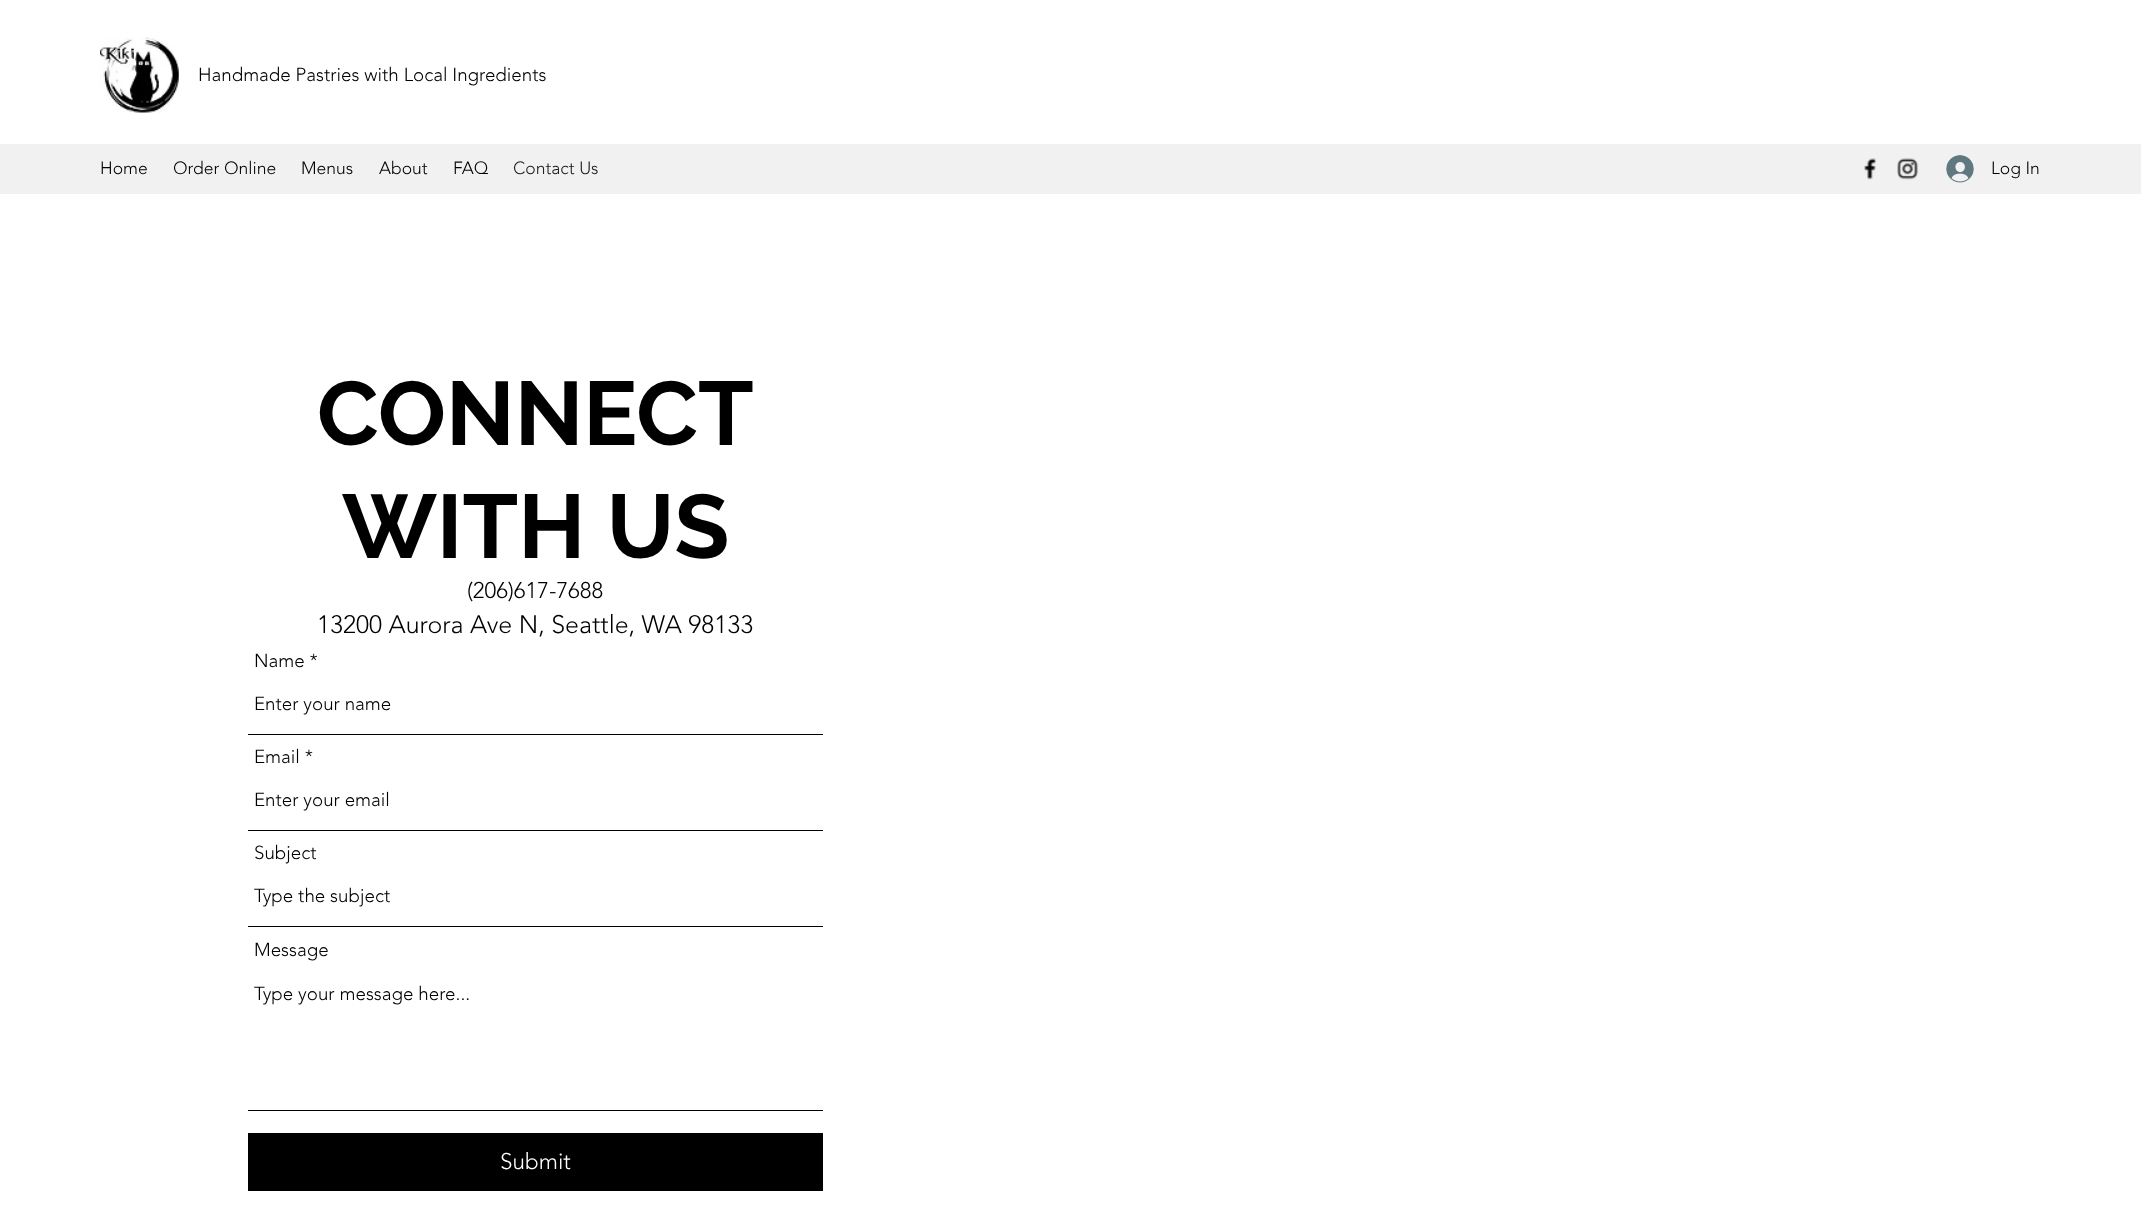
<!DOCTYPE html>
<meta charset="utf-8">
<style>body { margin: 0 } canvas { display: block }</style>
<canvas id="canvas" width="2141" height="1216"></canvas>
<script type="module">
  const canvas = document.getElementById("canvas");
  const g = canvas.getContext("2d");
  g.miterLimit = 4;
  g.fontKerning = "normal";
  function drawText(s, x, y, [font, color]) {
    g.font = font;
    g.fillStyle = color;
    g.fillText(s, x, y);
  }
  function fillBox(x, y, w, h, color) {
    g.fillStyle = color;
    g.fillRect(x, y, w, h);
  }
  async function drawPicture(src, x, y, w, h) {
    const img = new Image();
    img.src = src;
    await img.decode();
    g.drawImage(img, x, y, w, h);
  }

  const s1 = ["300 18.75px 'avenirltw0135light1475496'", "#000000"];
  const s2 = ["300 17.5px 'avenirltw0135light1475496'", "#000000"];
  const s3 = ["300 17.5px 'avenirltw0135light1475496'", "#191919"];
  const s4 = ["bold 90px Raleway", "#000000"];
  const s5 = ["300 22.5px 'avenirltw0135light1475496'", "#000000"];
  const s6 = ["300 25px 'avenirltw0135light1475496'", "#000000"];
  const s7 = ["300 22.5px 'avenirltw0135light1475496'", "#FFFFFF"];

  fillBox(0, 0, 2141, 1216, "#FFFFFF");
  await drawPicture("pic1.png", 100, 37, 79, 76);
  drawText("Handmade Pastries with Local Ingredients", 198, 81, s1);
  fillBox(0, 144, 2141, 50, "#F1F1F1");
  drawText("Home", 100, 174, s2);
  drawText("Order Online", 173, 174, s2);
  drawText("Menus", 301, 174, s2);
  drawText("About", 379, 174, s2);
  drawText("FAQ", 453, 174, s2);
  drawText("Contact Us", 513, 174, s3);
  await drawPicture("pic2.png", 1864, 158, 12, 22);
  await drawPicture("pic3.png", 1897, 158, 22, 22);
  await drawPicture("pic4.png", 1946, 155, 28, 28);
  drawText("Log In", 1991, 174, s2);
  drawText("CONNECT", 317, 445, s4);
  drawText("WITH US", 342, 558, s4);
  drawText("(206)617-7688", 467, 598, s5);
  drawText("13200 Aurora Ave N, Seattle, WA 98133", 317, 633, s6);
  drawText("Name *", 254, 667, s1);
  fillBox(248, 734, 575, 1, "#000000");
  drawText("Enter your name", 254, 710, s1);
  drawText("Email *", 254, 763, s1);
  fillBox(248, 830, 575, 1, "#000000");
  drawText("Enter your email", 254, 806, s1);
  drawText("Subject", 254, 859, s1);
  fillBox(248, 926, 575, 1, "#000000");
  drawText("Type the subject", 254, 902, s1);
  drawText("Message", 254, 956, s1);
  fillBox(248, 1110, 575, 1, "#000000");
  drawText("Type your message here...", 254, 1000, s1);
  fillBox(248, 1133, 575, 58, "#000000");
  drawText("Submit", 500, 1169, s7);
</script>
